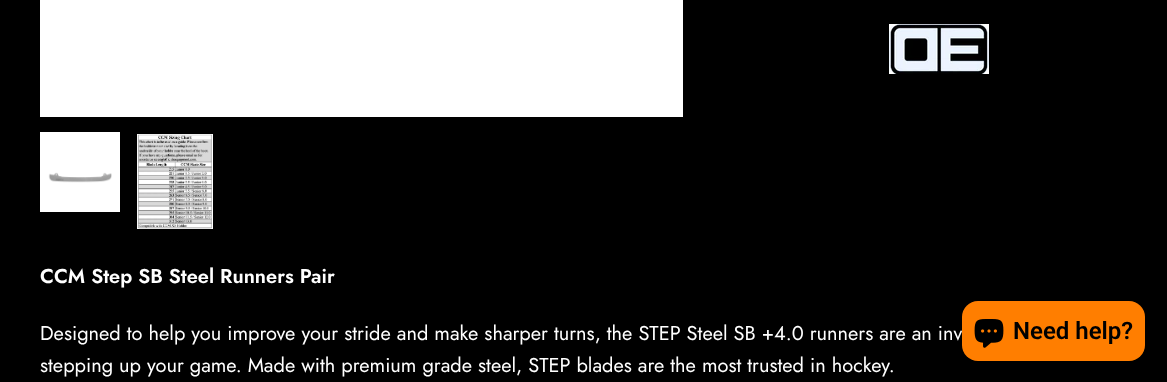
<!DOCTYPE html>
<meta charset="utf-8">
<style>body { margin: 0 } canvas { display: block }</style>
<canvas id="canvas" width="1167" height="382"></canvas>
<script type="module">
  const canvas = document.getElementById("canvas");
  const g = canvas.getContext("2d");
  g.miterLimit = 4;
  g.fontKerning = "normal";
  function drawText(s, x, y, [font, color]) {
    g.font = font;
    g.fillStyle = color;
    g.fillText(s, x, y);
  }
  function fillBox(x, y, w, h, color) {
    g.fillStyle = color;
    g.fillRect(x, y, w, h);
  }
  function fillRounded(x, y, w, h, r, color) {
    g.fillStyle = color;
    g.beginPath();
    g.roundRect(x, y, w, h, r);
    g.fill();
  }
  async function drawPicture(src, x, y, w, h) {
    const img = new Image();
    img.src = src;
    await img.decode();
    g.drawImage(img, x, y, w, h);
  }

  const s1 = ["600 20px Jost", "#FFFFFF"];
  const s2 = ["20px Jost", "#FFFFFF"];
  const s3 = ["600 24px Roboto", "#000000"];

  fillBox(0, 0, 1167, 382, "#000000");
  fillBox(40, 0, 643, 117, "#FFFFFF");
  g.strokeStyle = "#FFFFFF";
  g.lineWidth = 2;
  g.strokeRect(41, 133, 78, 78);
  fillBox(42, 134, 76, 76, "#FFFFFF");
  await drawPicture("pic1.png", 48, 172, 64, 11);
  fillBox(137, 134, 76, 95, "#FFFFFF");
  await drawPicture("pic2.png", 137, 134, 75, 95);
  await drawPicture("pic3.png", 889, 24, 100, 50);
  drawText("CCM Step SB Steel Runners Pair", 40, 283, s1);
  drawText("Designed to help you improve your stride and make sharper turns, the STEP Steel SB +4.0 runners are an inv", 40, 340, s2);
  drawText("stepping up your game. Made with premium grade steel, STEP blades are the most trusted in hockey.", 40, 372, s2);
  g.fillStyle = "rgba(0, 0, 0, 0.15)";
  g.filter = "blur(2.5px)";
  g.beginPath();
  g.roundRect(962, 301, 183, 60, 16);
  g.fill();
  g.filter = "none";
  fillRounded(962, 301, 183, 60, 16, "#FF7E00");
  await drawPicture("pic4.png", 974, 319, 30, 29);
  drawText("Need help?", 1013, 339, s3);
</script>
